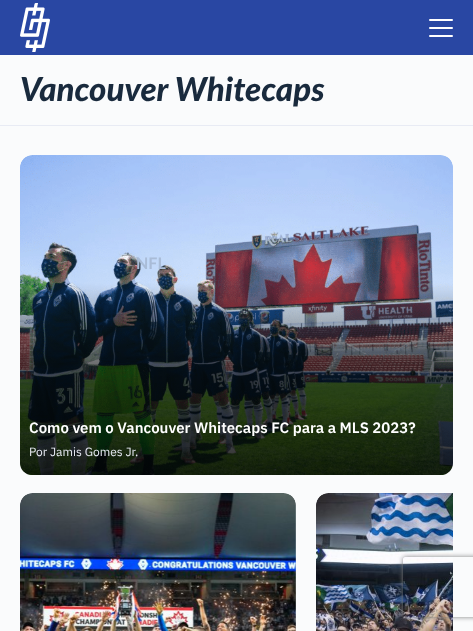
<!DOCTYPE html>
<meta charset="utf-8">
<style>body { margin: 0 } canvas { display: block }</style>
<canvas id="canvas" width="473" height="631"></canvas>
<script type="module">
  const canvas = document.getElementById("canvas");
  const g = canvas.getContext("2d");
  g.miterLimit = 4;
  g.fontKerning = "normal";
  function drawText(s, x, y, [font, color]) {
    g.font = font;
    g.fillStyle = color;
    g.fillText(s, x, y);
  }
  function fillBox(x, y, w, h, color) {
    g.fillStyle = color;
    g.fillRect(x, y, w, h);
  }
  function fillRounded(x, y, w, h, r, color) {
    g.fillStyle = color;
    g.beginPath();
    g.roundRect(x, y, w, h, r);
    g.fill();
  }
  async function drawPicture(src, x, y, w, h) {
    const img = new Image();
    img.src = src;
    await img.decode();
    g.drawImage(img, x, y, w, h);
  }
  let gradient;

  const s1 = ["italic 900 33px Lato", "#192A3D"];
  const s2 = ["600 15px IBM Plex Sans", "#FFFFFF"];
  const s3 = ["12px IBM Plex Sans", "#E8EBF4"];
  const s4 = ["bold 16px Lato", "#A9BCD7"];

  fillBox(0, 0, 473, 631, "#FAFBFC");
  fillBox(0, 125, 473, 1, "#E8EBF4");
  drawText("Vancouver Whitecaps", 20, 101, s1);
  await drawPicture("pic1.png", 20, 155, 433, 320);
  gradient = g.createLinearGradient(237, 475, 237, 155);
  gradient.addColorStop(0, "rgba(0, 0, 0, 0.81)");
  gradient.addColorStop(0.35, "rgba(0, 0, 0, 0.55)");
  gradient.addColorStop(0.6, "rgba(0, 0, 0, 0)");
  gradient.addColorStop(1, "rgba(0, 0, 0, 0)");
  g.fillStyle = gradient;
  g.beginPath();
  g.roundRect(20, 155, 433, 320, 12);
  g.fill();
  drawText("Como vem o Vancouver Whitecaps FC para a MLS 2023?", 29, 433, s2);
  drawText("Por Jamis Gomes Jr.", 29, 456, s3);
  await drawPicture("pic2.png", 20, 493, 276, 138);
  gradient = g.createLinearGradient(158, 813, 158, 493);
  gradient.addColorStop(0, "rgba(0, 0, 0, 0.81)");
  gradient.addColorStop(0.35, "rgba(0, 0, 0, 0.55)");
  gradient.addColorStop(0.6, "rgba(0, 0, 0, 0)");
  gradient.addColorStop(1, "rgba(0, 0, 0, 0)");
  g.fillStyle = gradient;
  g.fillRect(20, 624, 276, 7);
  await drawPicture("pic3.png", 316, 493, 137, 138);
  gradient = g.createLinearGradient(454, 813, 454, 493);
  gradient.addColorStop(0, "rgba(0, 0, 0, 0.81)");
  gradient.addColorStop(0.35, "rgba(0, 0, 0, 0.55)");
  gradient.addColorStop(0.6, "rgba(0, 0, 0, 0)");
  gradient.addColorStop(1, "rgba(0, 0, 0, 0)");
  g.fillStyle = gradient;
  g.fillRect(316, 624, 137, 7);
  fillBox(0, 0, 473, 55, "#2947A3");
  await drawPicture("pic4.png", 20, 3, 30, 49);
  fillRounded(429, 19, 24, 2, 1, "#FFFFFF");
  fillRounded(429, 27, 24, 2, 1, "#FFFFFF");
  fillRounded(429, 35, 24, 2, 1, "#FFFFFF");
  drawText("NFL", 136, 269, s4);
  g.save();
  g.beginPath();
  g.moveTo(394, 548);
  g.lineTo(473, 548);
  g.lineTo(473, 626);
  g.lineTo(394, 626);
  g.closePath();
  g.moveTo(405, 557);
  g.lineTo(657, 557);
  g.bezierCurveTo(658, 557, 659, 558, 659, 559);
  g.lineTo(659, 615);
  g.bezierCurveTo(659, 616, 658, 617, 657, 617);
  g.lineTo(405, 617);
  g.bezierCurveTo(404, 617, 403, 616, 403, 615);
  g.lineTo(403, 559);
  g.bezierCurveTo(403, 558, 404, 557, 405, 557);
  g.closePath();
  g.clip("evenodd");
  g.fillStyle = "#808080";
  g.filter = "blur(2.5px)";
  g.beginPath();
  g.roundRect(403, 557, 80, 60, 2);
  g.fill();
  g.filter = "none";
  g.restore();
</script>
